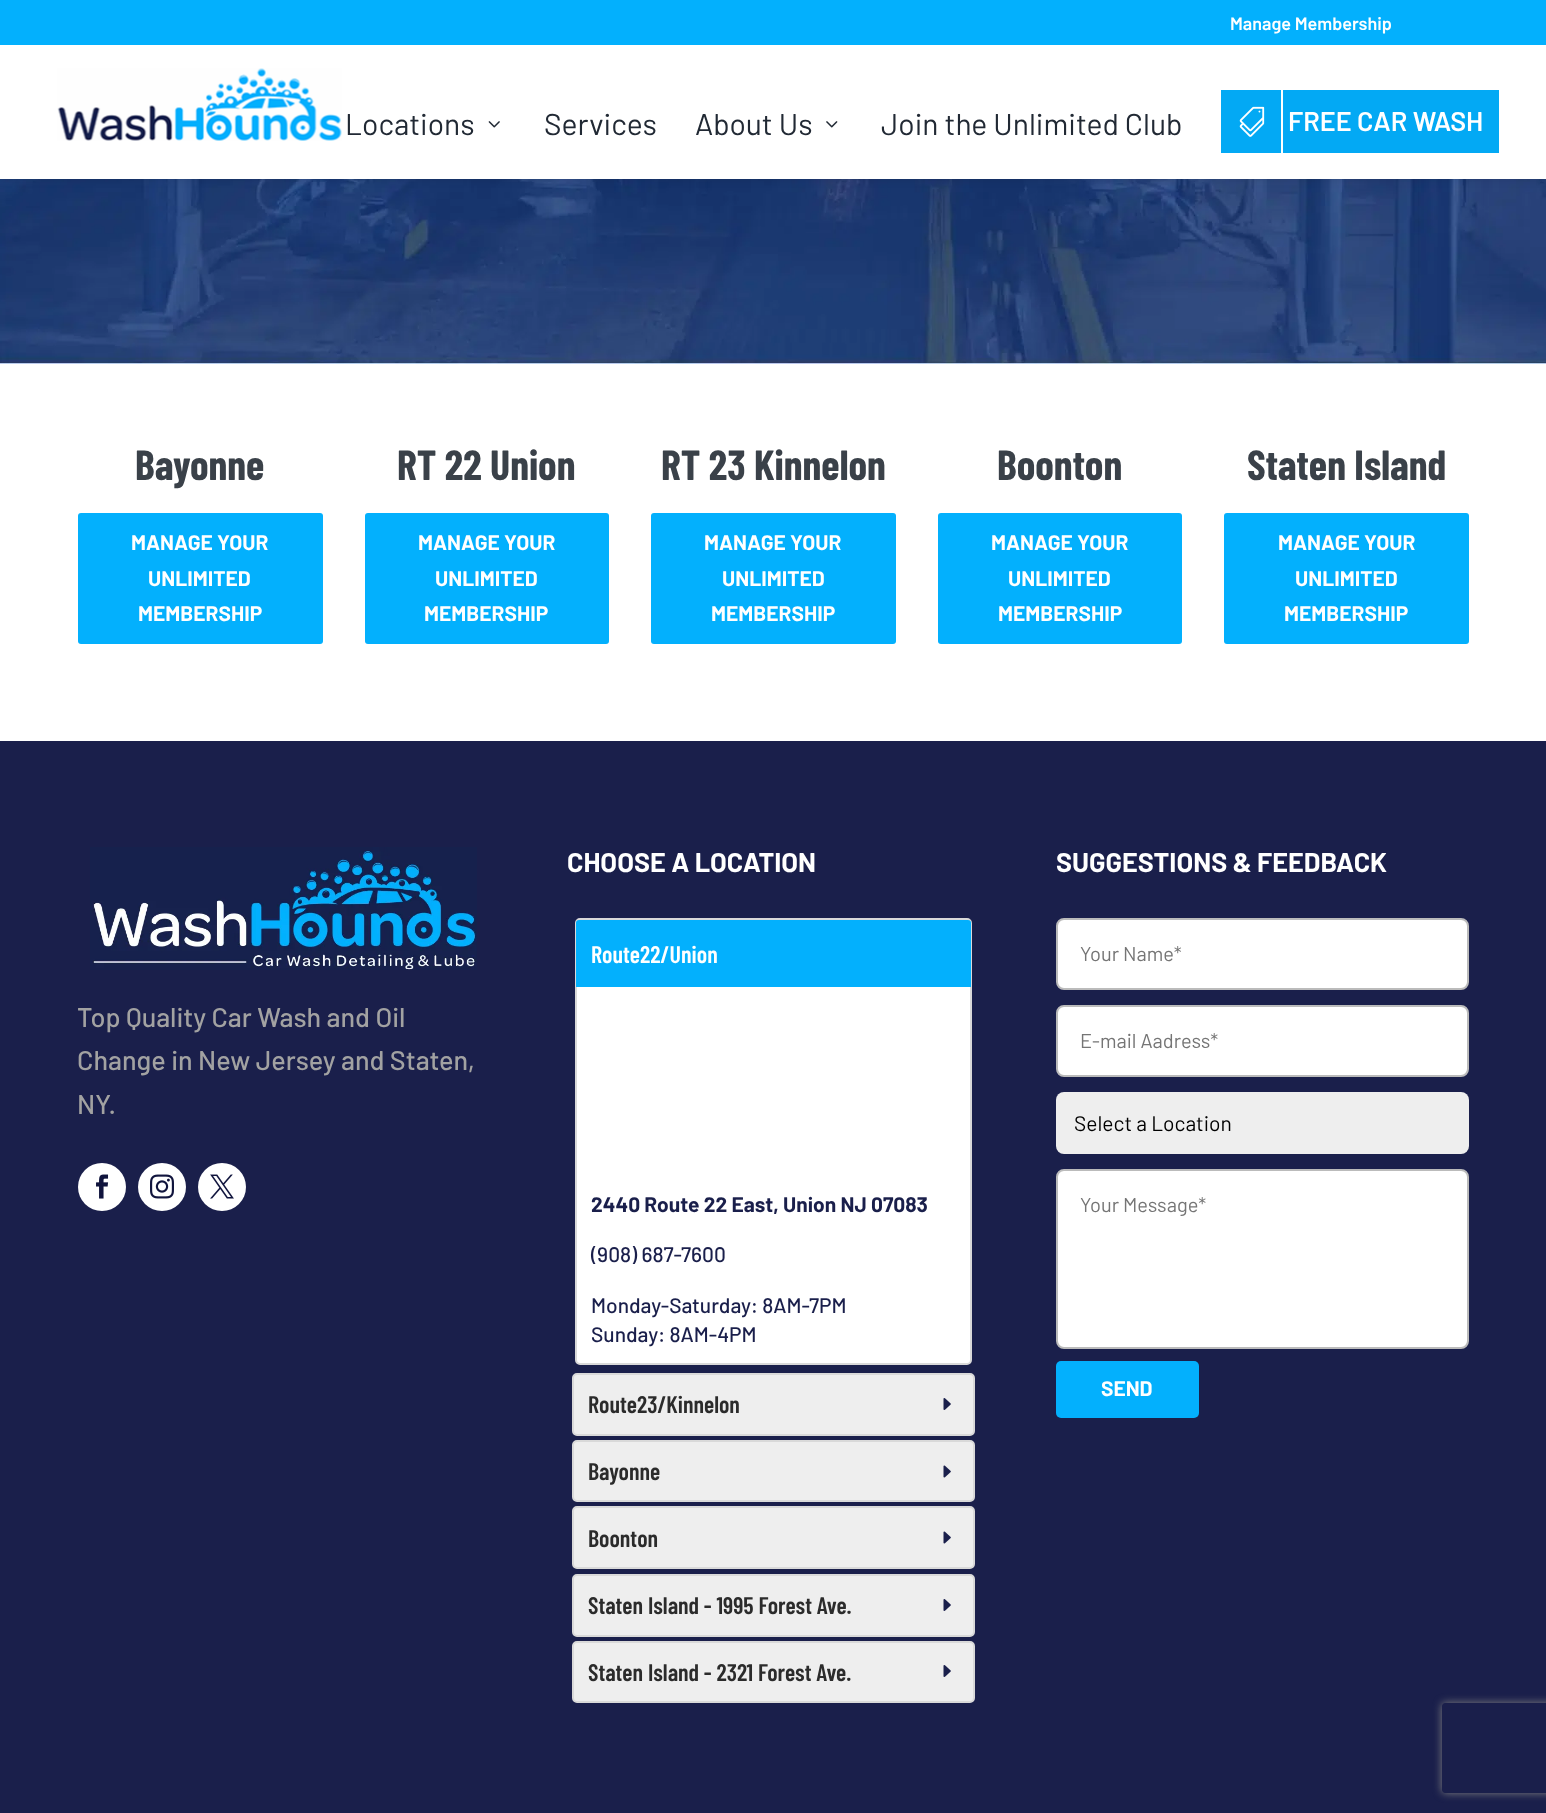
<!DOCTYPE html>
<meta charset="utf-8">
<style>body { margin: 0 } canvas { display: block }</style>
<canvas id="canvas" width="1546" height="1813"></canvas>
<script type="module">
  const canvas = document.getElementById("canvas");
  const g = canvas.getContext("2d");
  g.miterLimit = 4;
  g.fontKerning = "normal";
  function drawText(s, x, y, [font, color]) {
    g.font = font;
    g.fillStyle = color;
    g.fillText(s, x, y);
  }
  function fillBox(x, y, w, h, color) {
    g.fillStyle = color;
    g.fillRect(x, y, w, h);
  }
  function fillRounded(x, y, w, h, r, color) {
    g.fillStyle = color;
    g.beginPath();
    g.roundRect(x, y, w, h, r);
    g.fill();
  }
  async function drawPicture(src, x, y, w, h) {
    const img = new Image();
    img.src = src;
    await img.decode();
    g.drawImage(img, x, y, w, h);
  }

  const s1 = ["600 18px Barlow", "#FFFFFF"];
  const s2 = ["30px Barlow", "#212934"];
  const s3 = ["600 27px Barlow", "#FFFFFF"];
  const s4 = ["bold 42px Barlow Condensed", "#3A4149"];
  const s5 = ["bold 21px Barlow", "#FFFFFF"];
  const s6 = ["500 27px Barlow", "#A2A2A2"];
  const s7 = ["bold 27px Barlow", "#FFFFFF"];
  const s8 = ["600 24px Barlow Condensed", "#FFFFFF"];
  const s9 = ["bold 21px Barlow", "#1A1F4B"];
  const s10 = ["500 21px Barlow", "#1A1F4B"];
  const s11 = ["600 24px Barlow Condensed", "#2B2B2B"];
  const s12 = ["20px Barlow", "#757575"];
  const s13 = ["21px Barlow", "#000000"];

  fillBox(0, 0, 1546, 1813, "#FFFFFF");
  await drawPicture("pic5.png", 0, 179, 1546, 185);
  g.fillStyle = "rgba(0, 0, 0, 0.1)";
  g.filter = "blur(5px)";
  g.beginPath();
  g.rect(0, 45, 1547, 134);
  g.fill();
  g.filter = "none";
  fillBox(0, 0, 1546, 45, "#03B0FD");
  drawText("Manage Membership", 1230, 30, s1);
  fillBox(0, 45, 1546, 134, "#FFFFFF");
  await drawPicture("pic1.png", 57, 68, 285, 73);
  drawText("Locations", 345, 135, s2);
  await drawPicture("pic2.png", 488, 121, 12, 7);
  drawText("Services", 544, 135, s2);
  drawText("About Us", 695, 135, s2);
  await drawPicture("pic3.png", 826, 121, 12, 7);
  drawText("Join the Unlimited Club", 881, 135, s2);
  fillBox(1221, 90, 278, 63, "#03A9F4");
  await drawPicture("pic4.png", 1239, 106, 26, 31);
  fillBox(1281, 90, 2, 63, "#FFFFFF");
  drawText("FREE CAR WASH", 1288, 131, s3);
  drawText("Bayonne", 135, 480, s4);
  fillRounded(78, 513, 245, 131, 3, "#03B0FD");
  drawText("MANAGE YOUR", 131, 550, s5);
  drawText("UNLIMITED", 148, 586, s5);
  drawText("MEMBERSHIP", 138, 621, s5);
  drawText("RT 22 Union", 397, 480, s4);
  fillRounded(365, 513, 244, 131, 3, "#03B0FD");
  drawText("MANAGE YOUR", 418, 550, s5);
  drawText("UNLIMITED", 435, 586, s5);
  drawText("MEMBERSHIP", 424, 621, s5);
  drawText("RT 23 Kinnelon", 661, 480, s4);
  fillRounded(651, 513, 245, 131, 3, "#03B0FD");
  drawText("MANAGE YOUR", 704, 550, s5);
  drawText("UNLIMITED", 722, 586, s5);
  drawText("MEMBERSHIP", 711, 621, s5);
  drawText("Boonton", 997, 480, s4);
  fillRounded(938, 513, 244, 131, 3, "#03B0FD");
  drawText("MANAGE YOUR", 991, 550, s5);
  drawText("UNLIMITED", 1008, 586, s5);
  drawText("MEMBERSHIP", 998, 621, s5);
  drawText("Staten Island", 1247, 480, s4);
  fillRounded(1224, 513, 245, 131, 3, "#03B0FD");
  drawText("MANAGE YOUR", 1278, 550, s5);
  drawText("UNLIMITED", 1295, 586, s5);
  drawText("MEMBERSHIP", 1284, 621, s5);
  fillBox(0, 741, 1546, 1072, "#1A1F4B");
  await drawPicture("pic6.png", 90, 847, 387, 123);
  drawText("Top Quality Car Wash and Oil", 77, 1027, s6);
  drawText("Change in New Jersey and Staten,", 77, 1070, s6);
  drawText("NY.", 77, 1114, s6);
  g.fillStyle = "#FFFFFF";
  g.beginPath();
  g.arc(102, 1187, 24, 0, Math.PI * 2);
  g.fill();
  await drawPicture("pic7.png", 96, 1174, 13, 25);
  g.beginPath();
  g.arc(162, 1187, 24, 0, Math.PI * 2);
  g.fill();
  await drawPicture("pic8.png", 150, 1174, 24, 25);
  g.beginPath();
  g.arc(222, 1187, 24, 0, Math.PI * 2);
  g.fill();
  await drawPicture("pic9.png", 210, 1174, 24, 25);
  drawText("CHOOSE A LOCATION", 567, 872, s7);
  g.beginPath();
  g.roundRect(576, 919, 395, 445, 4);
  g.fill();
  g.strokeStyle = "#D9D9D9";
  g.lineWidth = 2;
  g.stroke();
  g.fillStyle = "#03B0FD";
  g.beginPath();
  g.roundRect(576, 920, 395, 67, [3, 3, 0, 0]);
  g.fill();
  drawText("Route22/Union", 591, 963, s8);
  drawText("2440 Route 22 East, Union NJ 07083", 591, 1212, s9);
  drawText("(908) 687-7600", 591, 1262, s10);
  drawText("Monday-Saturday: 8AM-7PM", 591, 1313, s10);
  drawText("Sunday: 8AM-4PM", 591, 1342, s10);
  g.fillStyle = "#EEEEEE";
  g.beginPath();
  g.roundRect(573, 1374, 401, 61, 4);
  g.fill();
  g.stroke();
  drawText("Route23/Kinnelon", 588, 1413, s11);
  await drawPicture("pic10.png", 943, 1398, 8, 12);
  g.fillStyle = "#EEEEEE";
  g.beginPath();
  g.roundRect(573, 1441, 401, 60, 4);
  g.fill();
  g.stroke();
  drawText("Bayonne", 588, 1480, s11);
  await drawPicture("pic11.png", 943, 1465, 8, 13);
  g.fillStyle = "#EEEEEE";
  g.beginPath();
  g.roundRect(573, 1507, 401, 61, 4);
  g.fill();
  g.stroke();
  drawText("Boonton", 588, 1547, s11);
  await drawPicture("pic11.png", 943, 1531, 8, 13);
  g.fillStyle = "#EEEEEE";
  g.beginPath();
  g.roundRect(573, 1575, 401, 61, 4);
  g.fill();
  g.stroke();
  drawText("Staten Island - 1995 Forest Ave.", 588, 1614, s11);
  await drawPicture("pic10.png", 943, 1599, 8, 12);
  g.fillStyle = "#EEEEEE";
  g.beginPath();
  g.roundRect(573, 1642, 401, 60, 4);
  g.fill();
  g.stroke();
  drawText("Staten Island - 2321 Forest Ave.", 588, 1681, s11);
  await drawPicture("pic10.png", 943, 1665, 8, 12);
  drawText("SUGGESTIONS & FEEDBACK", 1056, 872, s7);
  g.beginPath();
  g.roundRect(1057, 919, 411, 70, 7);
  g.fill();
  g.strokeStyle = "#BBBBBB";
  g.stroke();
  drawText("Your Name*", 1080, 961, s12);
  g.fillStyle = "#FFFFFF";
  g.beginPath();
  g.roundRect(1057, 1006, 411, 70, 7);
  g.fill();
  g.stroke();
  drawText("E-mail Aadress*", 1080, 1048, s12);
  fillRounded(1056, 1092, 413, 62, 8, "#EEEEEE");
  drawText("Select a Location", 1074, 1131, s13);
  g.fillStyle = "#FFFFFF";
  g.beginPath();
  g.roundRect(1057, 1170, 411, 178, 7);
  g.fill();
  g.stroke();
  drawText("Your Message*", 1080, 1212, s12);
  fillRounded(1056, 1361, 143, 57, 5, "#03B0FD");
  drawText("SEND", 1101, 1396, s5);
  g.save();
  g.beginPath();
  g.moveTo(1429, 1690);
  g.lineTo(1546, 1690);
  g.lineTo(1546, 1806);
  g.lineTo(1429, 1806);
  g.closePath();
  g.moveTo(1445, 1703);
  g.lineTo(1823, 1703);
  g.bezierCurveTo(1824.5, 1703, 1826, 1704.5, 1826, 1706);
  g.lineTo(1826, 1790);
  g.bezierCurveTo(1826, 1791.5, 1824.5, 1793, 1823, 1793);
  g.lineTo(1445, 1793);
  g.bezierCurveTo(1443.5, 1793, 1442, 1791.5, 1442, 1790);
  g.lineTo(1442, 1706);
  g.bezierCurveTo(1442, 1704.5, 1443.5, 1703, 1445, 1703);
  g.closePath();
  g.clip("evenodd");
  g.fillStyle = "#808080";
  g.filter = "blur(4px)";
  g.beginPath();
  g.roundRect(1442, 1703, 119, 90, 3);
  g.fill();
  g.filter = "none";
  g.restore();
</script>
